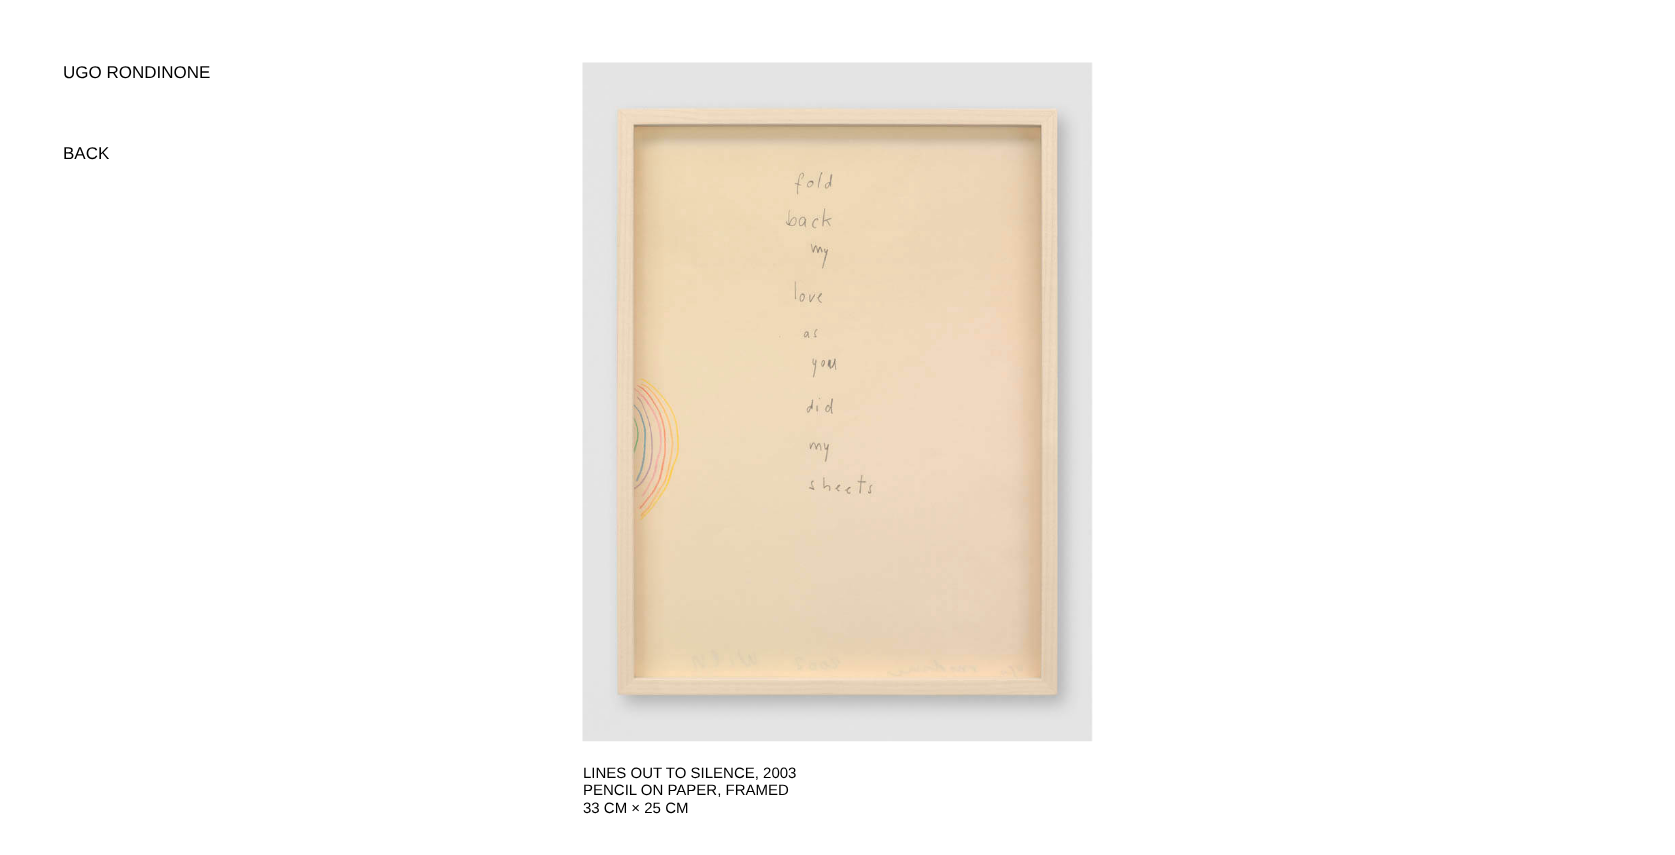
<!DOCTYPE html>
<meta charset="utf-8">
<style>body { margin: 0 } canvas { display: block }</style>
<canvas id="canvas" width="1675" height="855"></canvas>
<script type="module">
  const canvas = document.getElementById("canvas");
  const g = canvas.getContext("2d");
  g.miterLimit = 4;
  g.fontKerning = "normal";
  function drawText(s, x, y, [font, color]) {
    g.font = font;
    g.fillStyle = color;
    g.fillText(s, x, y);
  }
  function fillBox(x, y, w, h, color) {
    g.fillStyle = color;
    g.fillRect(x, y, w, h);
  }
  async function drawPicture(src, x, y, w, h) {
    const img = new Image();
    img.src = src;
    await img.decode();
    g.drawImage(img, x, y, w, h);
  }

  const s1 = ["17px Liberation Sans", "#000000"];
  const s2 = ["15px Liberation Sans", "#000000"];

  fillBox(0, 0, 1675, 855, "#FFFFFF");
  drawText("UGO RONDINONE", 63, 78, s1);
  drawText("BACK", 63, 159, s1);
  await drawPicture("pic1.png", 582, 62, 511, 680);
  drawText("LINES OUT TO SILENCE, 2003", 583, 778, s2);
  drawText("PENCIL ON PAPER, FRAMED", 583, 795, s2);
  drawText("33 CM × 25 CM", 583, 813, s2);
</script>
